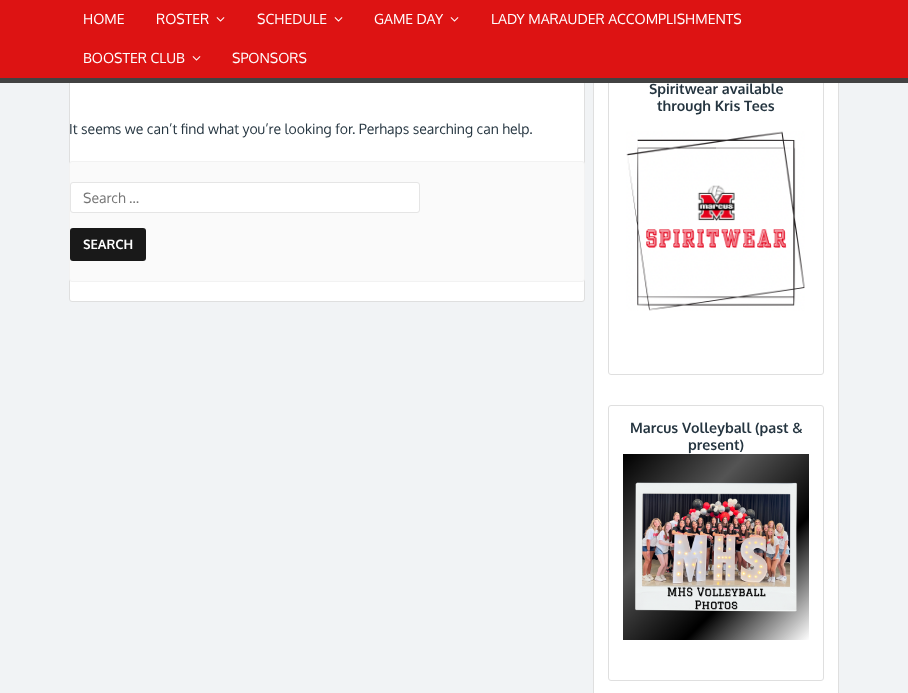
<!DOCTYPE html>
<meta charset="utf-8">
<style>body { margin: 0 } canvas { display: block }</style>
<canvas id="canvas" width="908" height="693"></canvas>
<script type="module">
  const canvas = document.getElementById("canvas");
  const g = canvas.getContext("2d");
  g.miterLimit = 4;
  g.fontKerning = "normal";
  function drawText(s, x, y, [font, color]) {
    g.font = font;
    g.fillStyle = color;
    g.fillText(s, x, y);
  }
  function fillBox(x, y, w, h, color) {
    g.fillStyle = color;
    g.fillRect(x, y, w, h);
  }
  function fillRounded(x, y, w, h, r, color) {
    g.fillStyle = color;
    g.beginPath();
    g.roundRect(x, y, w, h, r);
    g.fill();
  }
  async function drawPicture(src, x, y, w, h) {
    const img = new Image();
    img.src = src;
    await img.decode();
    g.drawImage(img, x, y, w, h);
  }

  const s1 = ["14px Oxygen", "#FFFFFF"];
  const s2 = ["14px Oxygen", "#253540"];
  const s3 = ["14px Oxygen", "#757575"];
  const s4 = ["bold 13px Oxygen", "#FFFFFF"];
  const s5 = ["bold 14.25px Oxygen", "#253540"];

  fillBox(0, 0, 908, 693, "#F1F3F5");
  g.fillStyle = "#FFFFFF";
  g.beginPath();
  g.roundRect(69.5, 9.5, 515, 292, 2.5);
  g.fill();
  g.strokeStyle = "#DFDFDF";
  g.stroke();
  fillBox(594, 83, 244, 610, "#FFFFFF");
  g.strokeRect(593.5, 9.5, 245, 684);
  g.beginPath();
  g.roundRect(608.5, 65.5, 215, 309, 2.5);
  g.stroke();
  fillBox(0, 0, 908, 78, "#DD1313");
  fillBox(0, 78, 908, 5, "#424242");
  drawText("HOME", 83, 24, s1);
  drawText("ROSTER", 156, 24, s1);
  await drawPicture("pic1.png", 216, 17, 9, 5);
  drawText("SCHEDULE", 257, 24, s1);
  await drawPicture("pic1.png", 334, 17, 9, 5);
  drawText("GAME DAY", 374, 24, s1);
  await drawPicture("pic1.png", 450, 17, 9, 5);
  drawText("LADY MARAUDER ACCOMPLISHMENTS", 491, 24, s1);
  drawText("BOOSTER CLUB", 83, 63, s1);
  await drawPicture("pic1.png", 192, 56, 9, 5);
  drawText("SPONSORS", 232, 63, s1);
  drawText("It seems we can’t find what you’re looking for. Perhaps searching can help.", 69, 134, s2);
  g.fillStyle = "#FAFAFA";
  g.beginPath();
  g.roundRect(69.5, 161.5, 515, 120, 2.5);
  g.fill();
  g.strokeStyle = "#F2F2F2";
  g.stroke();
  g.fillStyle = "#FFFFFF";
  g.beginPath();
  g.roundRect(70.5, 182.5, 349, 30, 2.5);
  g.fill();
  g.strokeStyle = "#E5E5E5";
  g.stroke();
  drawText("Search …", 83, 203, s3);
  fillRounded(70, 228, 76, 33, 3, "#191919");
  drawText("SEARCH", 83, 249, s4);
  drawText("Spiritwear available", 649, 94, s5);
  drawText("through Kris Tees", 657, 111, s5);
  await drawPicture("pic2.png", 626, 131, 179, 180);
  g.beginPath();
  g.roundRect(608.5, 405.5, 215, 275, 2.5);
  g.strokeStyle = "#DFDFDF";
  g.stroke();
  drawText("Marcus Volleyball (past &", 630, 433, s5);
  drawText("present)", 688, 450, s5);
  await drawPicture("pic3.png", 623, 454, 186, 186);
</script>
